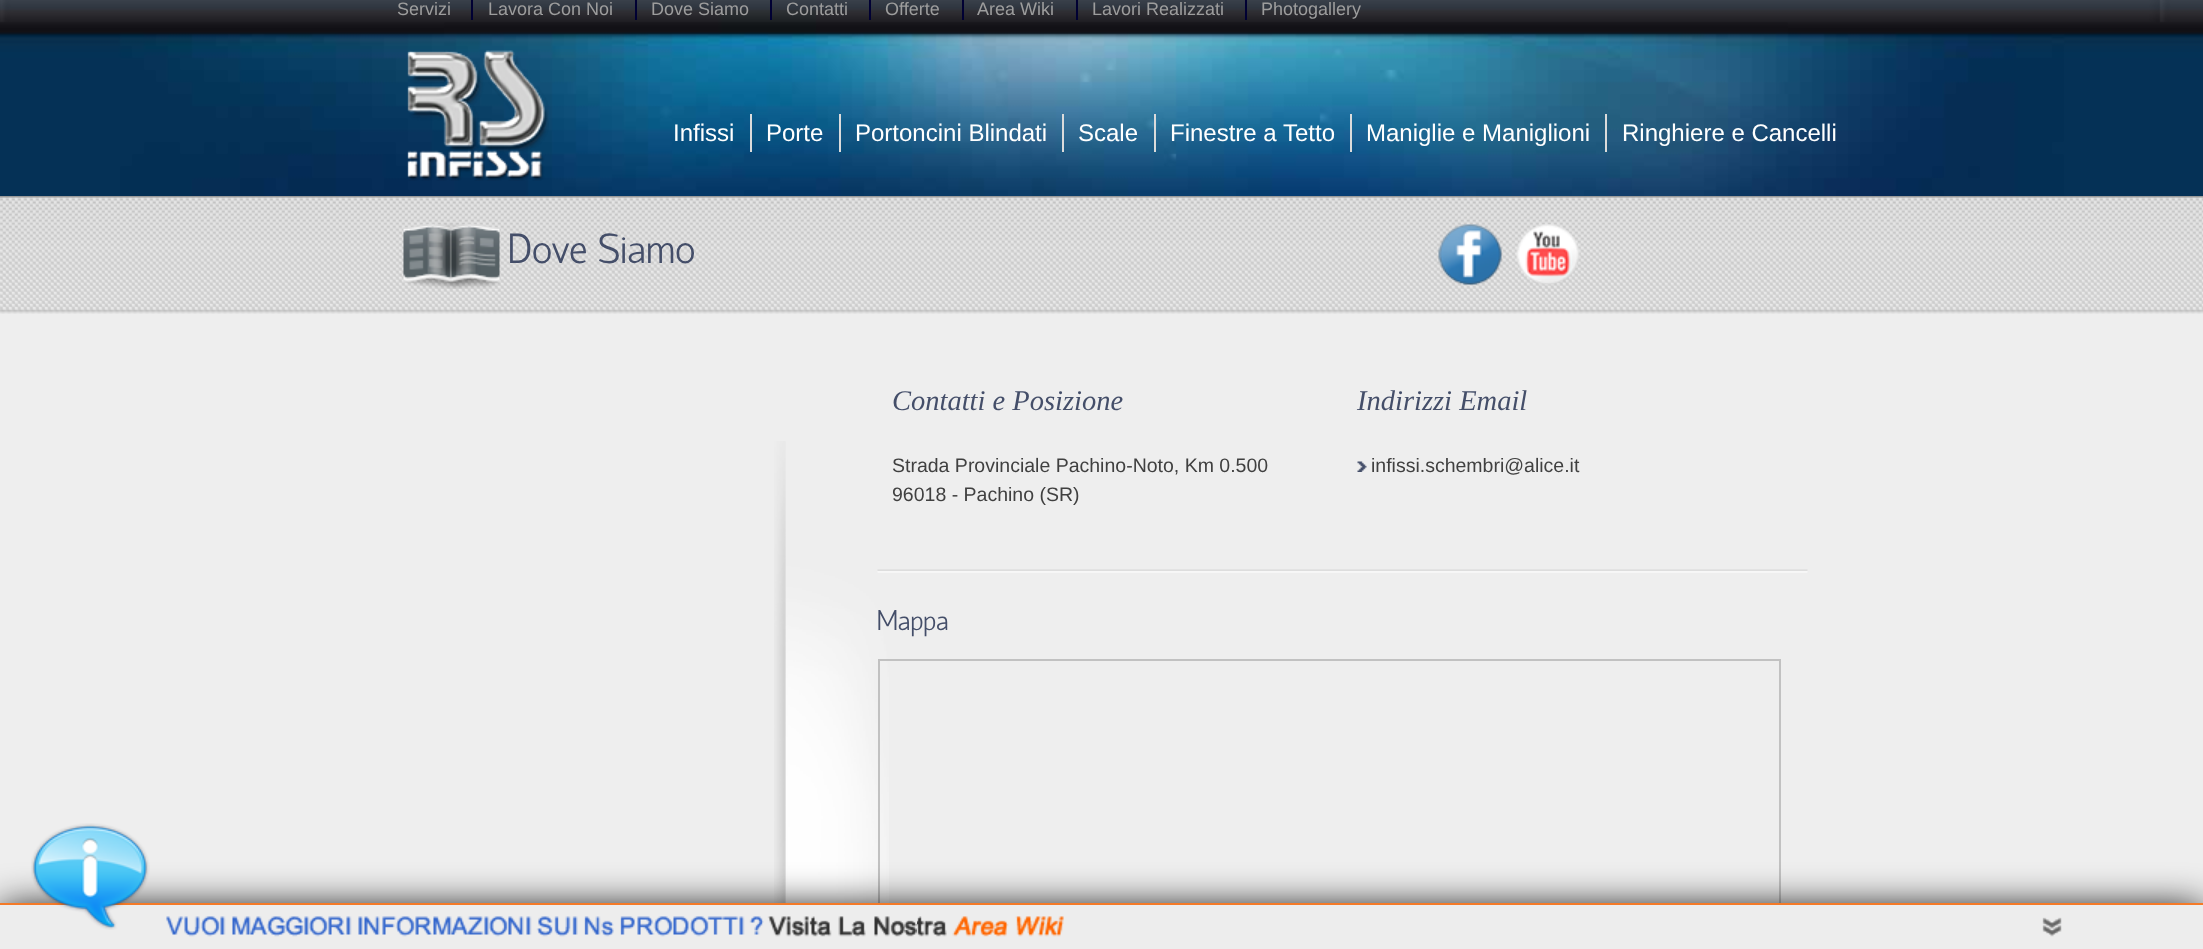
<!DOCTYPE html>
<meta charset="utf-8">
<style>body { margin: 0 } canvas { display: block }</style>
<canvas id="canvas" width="2203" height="949"></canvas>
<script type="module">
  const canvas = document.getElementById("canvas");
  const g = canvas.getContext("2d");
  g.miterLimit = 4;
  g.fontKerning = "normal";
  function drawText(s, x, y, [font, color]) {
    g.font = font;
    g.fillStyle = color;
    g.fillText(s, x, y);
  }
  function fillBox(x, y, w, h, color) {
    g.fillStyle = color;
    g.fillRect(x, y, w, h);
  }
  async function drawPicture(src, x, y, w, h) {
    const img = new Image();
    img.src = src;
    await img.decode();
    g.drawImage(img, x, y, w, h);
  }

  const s1 = ["18px Liberation Sans", "#9D9D9D"];
  const s2 = ["24px Liberation Sans", "#FFFFFF"];
  const s3 = ["300 42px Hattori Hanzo", "#444E69"];
  const s4 = ["italic 28.5px Liberation Serif", "#444E69"];
  const s5 = ["19.5px Liberation Sans", "#404040"];
  const s6 = ["300 28.5px Hattori Hanzo", "#444E69"];

  fillBox(0, 0, 2203, 949, "#EEEEEE");
  await drawPicture("pic1.png", 0, 0, 2203, 196);
  drawText("Servizi", 397, 15, s1);
  drawText("Lavora Con Noi", 488, 15, s1);
  fillBox(471, 0, 2, 20, "#000033");
  drawText("Dove Siamo", 651, 15, s1);
  fillBox(635, 0, 2, 20, "#000033");
  drawText("Contatti", 786, 15, s1);
  fillBox(770, 0, 2, 20, "#000033");
  drawText("Offerte", 885, 15, s1);
  fillBox(869, 0, 2, 20, "#000033");
  drawText("Area Wiki", 977, 15, s1);
  fillBox(962, 0, 2, 20, "#000033");
  drawText("Lavori Realizzati", 1092, 15, s1);
  fillBox(1076, 0, 2, 20, "#000033");
  drawText("Photogallery", 1261, 15, s1);
  fillBox(1245, 0, 2, 20, "#000033");
  await drawPicture("pic2.png", 407, 50, 142, 131);
  drawText("Infissi", 673, 141, s2);
  fillBox(750, 114, 2, 38, "#DBDBDB");
  drawText("Porte", 766, 141, s2);
  fillBox(839, 114, 2, 38, "#DBDBDB");
  drawText("Portoncini Blindati", 855, 141, s2);
  fillBox(1062, 114, 2, 38, "#DBDBDB");
  drawText("Scale", 1078, 141, s2);
  fillBox(1154, 114, 2, 38, "#DBDBDB");
  drawText("Finestre a Tetto", 1170, 141, s2);
  fillBox(1350, 114, 2, 38, "#DBDBDB");
  drawText("Maniglie e Maniglioni", 1366, 141, s2);
  fillBox(1605, 114, 2, 38, "#DBDBDB");
  drawText("Ringhiere e Cancelli", 1622, 141, s2);
  await drawPicture("pic3.png", 0, 196, 2203, 118);
  await drawPicture("pic4.png", 403, 223, 97, 66);
  drawText("Dove Siamo", 508, 263, s3);
  await drawPicture("pic5.png", 1438, 224, 64, 61);
  await drawPicture("pic6.png", 1516, 224, 64, 61);
  await drawPicture("pic7.png", 774, 441, 115, 462);
  drawText("Contatti e Posizione", 892, 410, s4);
  drawText("Strada Provinciale Pachino-Noto, Km 0.500", 892, 472, s5);
  drawText("96018 - Pachino (SR)", 892, 501, s5);
  drawText("Indirizzi Email", 1357, 410, s4);
  await drawPicture("pic8.png", 1357, 461, 10, 11);
  drawText("infissi.schembri@alice.it", 1371, 472, s5);
  await drawPicture("pic9.png", 877, 569, 931, 4);
  drawText("Mappa", 877, 630, s6);
  g.strokeStyle = "#C1C1C1";
  g.lineWidth = 2;
  g.strokeRect(879, 660, 901, 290);
  g.fillStyle = "#000000";
  g.filter = "blur(19px)";
  g.beginPath();
  g.rect(0, 908, 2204, 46);
  g.fill();
  g.filter = "none";
  fillBox(0, 905, 2203, 44, "#EDEDED");
  fillBox(0, 903, 2203, 2, "#F47A28");
  await drawPicture("pic10.png", 31, 823, 119, 107);
  await drawPicture("pic11.png", 166, 916, 898, 21);
  await drawPicture("pic12.png", 2042, 917, 20, 20);
</script>
